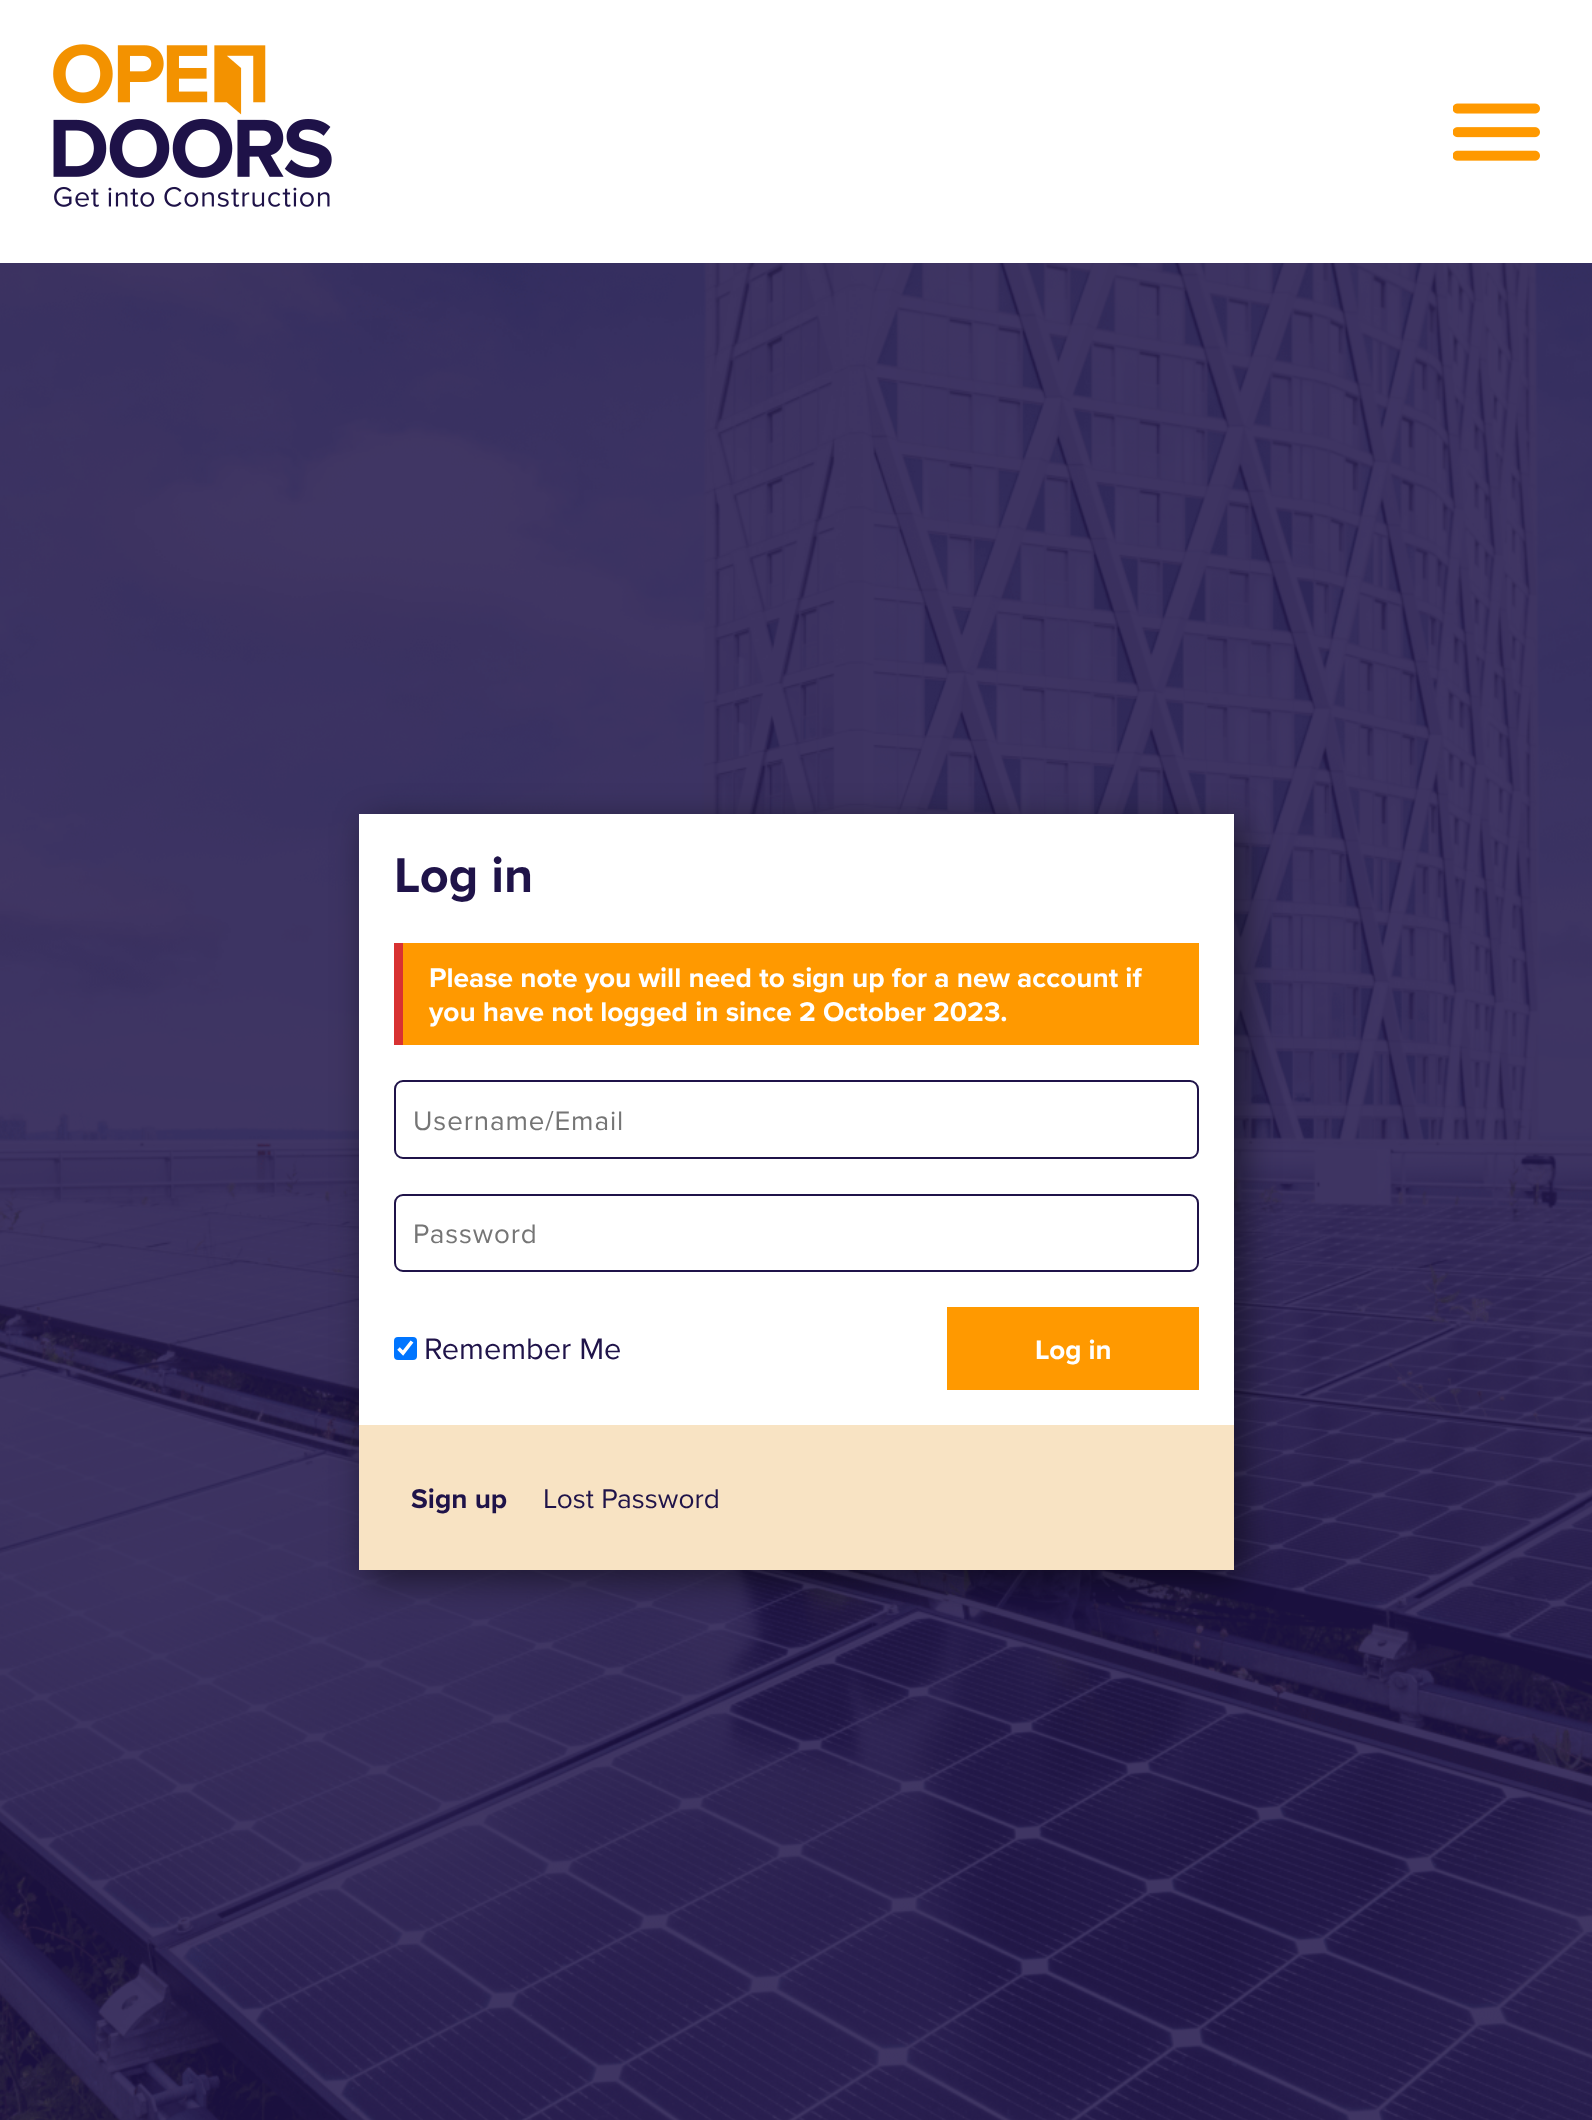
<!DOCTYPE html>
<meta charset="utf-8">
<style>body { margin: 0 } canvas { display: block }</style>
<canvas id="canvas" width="1592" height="2120"></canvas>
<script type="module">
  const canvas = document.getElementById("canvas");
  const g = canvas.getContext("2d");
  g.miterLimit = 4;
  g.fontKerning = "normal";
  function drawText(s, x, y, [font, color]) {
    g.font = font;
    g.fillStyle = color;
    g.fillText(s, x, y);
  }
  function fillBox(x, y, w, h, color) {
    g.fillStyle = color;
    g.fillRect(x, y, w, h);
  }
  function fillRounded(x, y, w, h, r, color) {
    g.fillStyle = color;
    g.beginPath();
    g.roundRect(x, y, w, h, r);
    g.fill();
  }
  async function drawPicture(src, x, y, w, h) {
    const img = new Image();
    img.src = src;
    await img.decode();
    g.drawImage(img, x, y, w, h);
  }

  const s1 = ["bold 50.5px Proxima Nova", "#1F1349"];
  const s2 = ["bold 28px Proxima Nova", "#FFFFFF"];
  const s3 = ["27.75px Proxima Nova", "#757575"];
  const s4 = ["30.75px Proxima Nova", "#1F1349"];
  const s5 = ["bold 27.75px Proxima Nova", "#FFFFFF"];
  const s6 = ["bold 28px Proxima Nova", "#1F1349"];
  const s7 = ["28px Proxima Nova", "#1F1349"];

  fillBox(0, 0, 1592, 2120, "#1F1349");
  fillBox(0, 0, 1592, 263, "#FFFFFF");
  await drawPicture("pic1.png", 53, 44, 279, 163);
  await drawPicture("pic2.png", 1453, 103, 87, 58);
  await drawPicture("pic3.png", 0, 263, 1592, 1857);
  g.fillStyle = "rgba(0, 0, 0, 0.5)";
  g.filter = "blur(17.5px)";
  g.beginPath();
  g.rect(368, 823, 875, 756);
  g.fill();
  g.filter = "none";
  fillBox(359, 814, 875, 611, "#FFFFFF");
  drawText("Log in", 394, 892, s1);
  fillBox(403, 943, 796, 102, "#FF9900");
  fillBox(394, 943, 9, 102, "#D83232");
  drawText("Please note you will need to sign up for a new account if", 429, 987, s2);
  drawText("you have not logged in since 2 October 2023.", 429, 1021, s2);
  g.beginPath();
  g.roundRect(395, 1081, 803, 77, 8);
  g.strokeStyle = "#1F1349";
  g.lineWidth = 2;
  g.stroke();
  g.letterSpacing = "0.9px";
  drawText("Username/Email", 413, 1130, s3);
  g.beginPath();
  g.roundRect(395, 1195, 803, 76, 8);
  g.stroke();
  drawText("Password", 413, 1243, s3);
  fillRounded(394, 1337, 23, 23, 4, "#0075FF");
  g.beginPath();
  g.moveTo(398.5, 1348.5);
  g.lineTo(403, 1353);
  g.lineTo(412, 1341.5);
  g.strokeStyle = "#FFFFFF";
  g.lineWidth = 3.6;
  g.stroke();
  g.letterSpacing = "0px";
  drawText("Remember Me", 424, 1359, s4);
  fillBox(947, 1307, 252, 83, "#FF9900");
  drawText("Log in", 1035, 1359, s5);
  fillBox(359, 1425, 875, 145, "#F8E3C3");
  drawText("Sign up", 411, 1508, s6);
  drawText("Lost Password", 543, 1508, s7);
</script>
